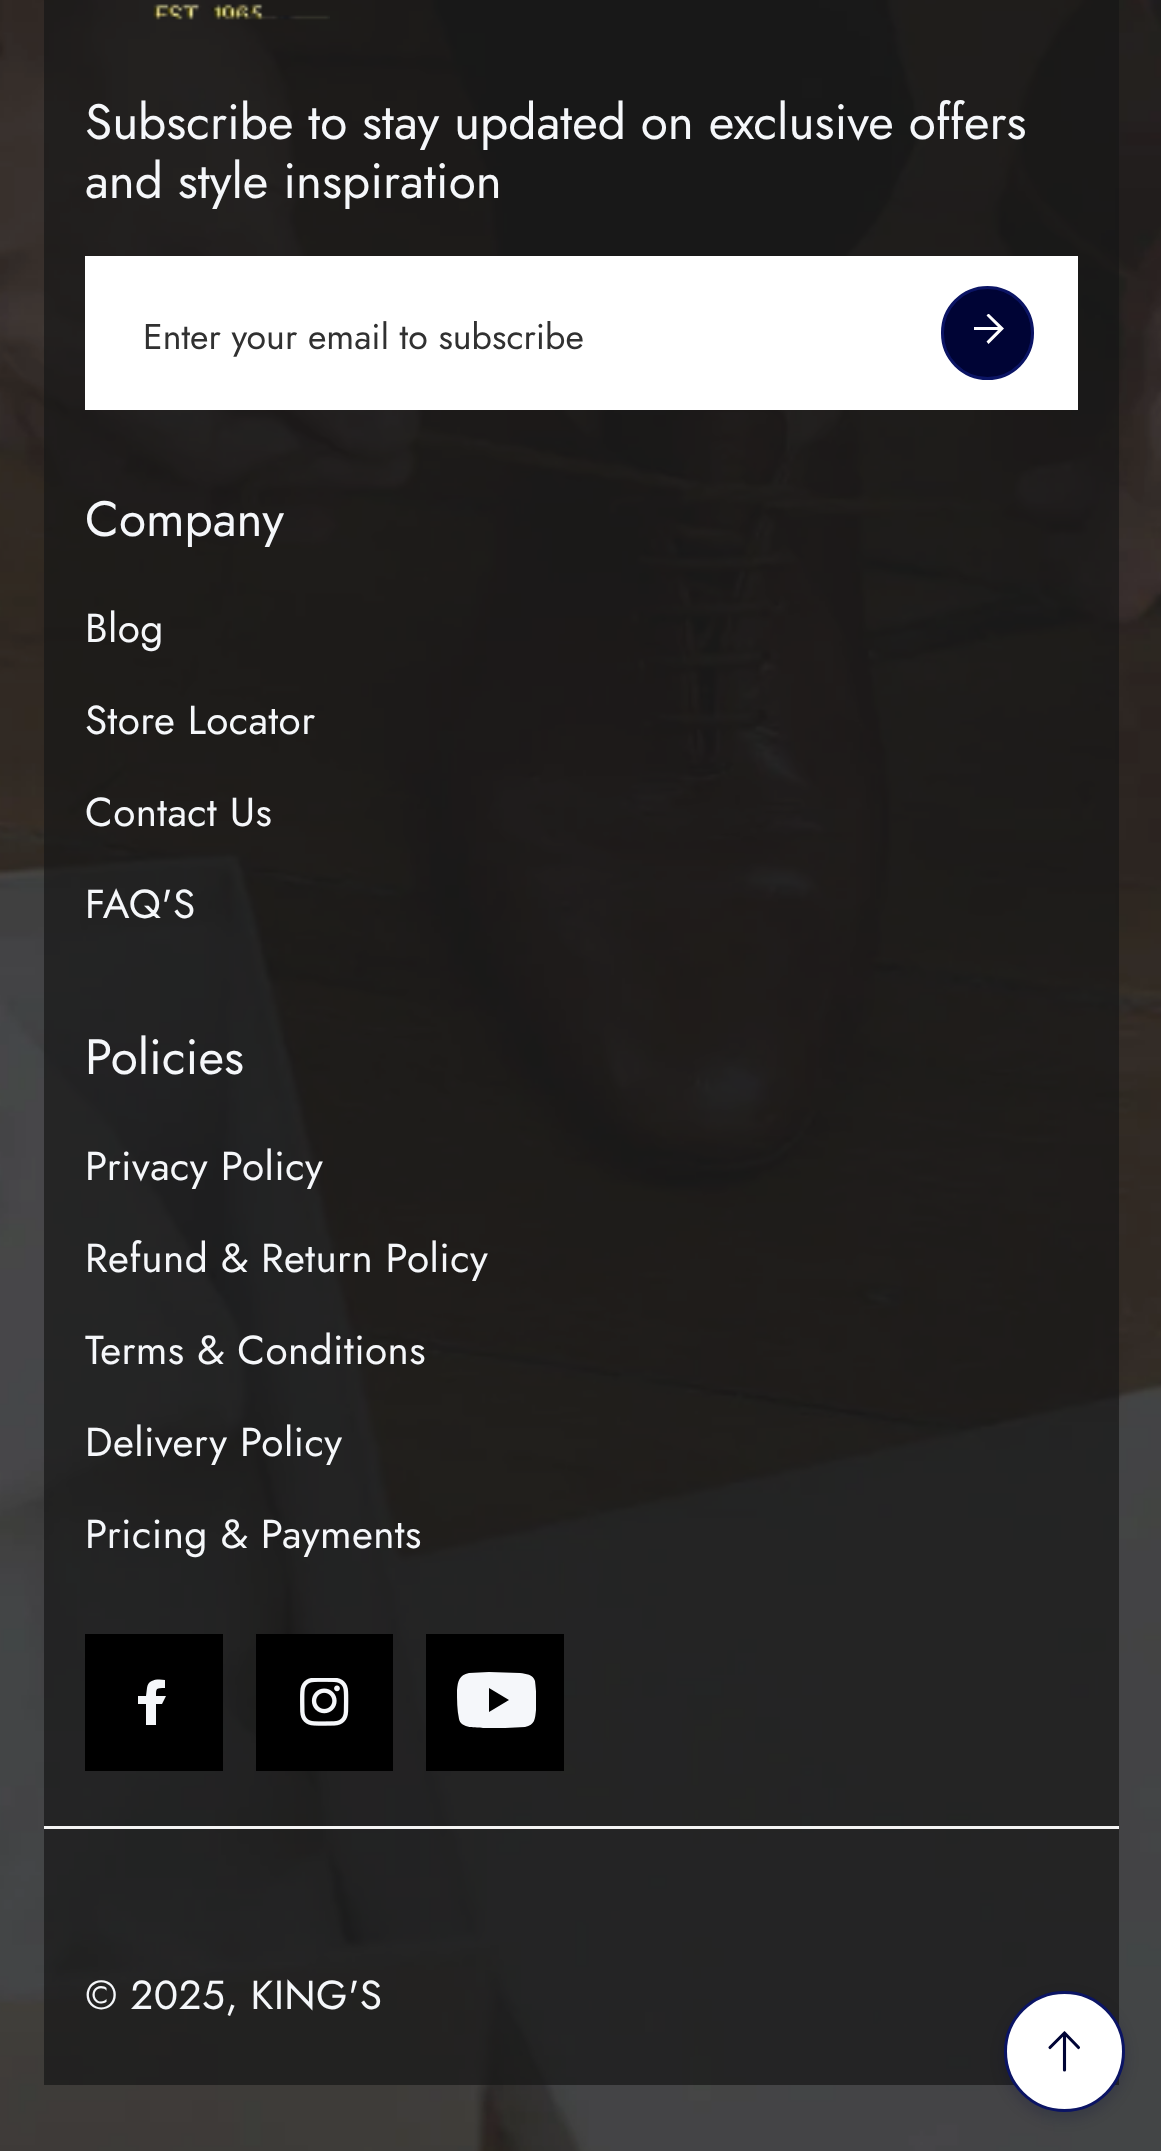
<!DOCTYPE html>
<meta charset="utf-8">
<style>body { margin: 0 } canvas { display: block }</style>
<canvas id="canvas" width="1161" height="2151"></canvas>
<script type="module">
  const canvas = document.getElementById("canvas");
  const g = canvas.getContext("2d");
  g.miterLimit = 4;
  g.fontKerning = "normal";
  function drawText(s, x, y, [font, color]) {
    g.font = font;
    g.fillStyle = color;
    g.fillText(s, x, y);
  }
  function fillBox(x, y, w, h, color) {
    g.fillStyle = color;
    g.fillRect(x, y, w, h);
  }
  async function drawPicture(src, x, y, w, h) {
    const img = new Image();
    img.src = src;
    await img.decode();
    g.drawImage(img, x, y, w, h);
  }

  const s1 = ["49.5px Jost", "#F5F7FA"];
  const s2 = ["35.75px Jost", "#313131"];
  const s3 = ["40.5px Jost", "#F5F7FA"];

  fillBox(0, 0, 1161, 2151, "#FFFFFF");
  await drawPicture("pic1.png", 0, 0, 1161, 2151);
  fillBox(44, 0, 1075, 2085, "rgba(23, 23, 23, 0.7)");
  await drawPicture("pic2.png", 153, 4, 177, 16);
  drawText("Subscribe to stay updated on exclusive offers", 85, 139, s1);
  drawText("and style inspiration", 85, 198, s1);
  fillBox(85, 256, 993, 154, "#FFFFFF");
  drawText("Enter your email to subscribe", 143, 349, s2);
  g.fillStyle = "#000435";
  g.beginPath();
  g.roundRect(942.5, 287.5, 90, 91, 45);
  g.fill();
  g.strokeStyle = "#0B1464";
  g.lineWidth = 3;
  g.stroke();
  g.save();
  g.beginPath();
  g.rect(974, 314, 30, 30);
  g.clip();
  g.fillStyle = "#FFFFFF";
  g.beginPath();
  g.moveTo(998, 327);
  g.lineTo(986.5, 315.5);
  g.lineTo(988.5, 313.5);
  g.lineTo(1004, 328.5);
  g.lineTo(988.5, 344);
  g.lineTo(986.5, 341.5);
  g.lineTo(998, 330);
  g.lineTo(973.5, 330);
  g.lineTo(973.5, 327);
  g.closePath();
  g.fill("evenodd");
  g.restore();
  drawText("Company", 85, 536, s1);
  g.letterSpacing = "0.4px";
  drawText("Blog", 85, 642, s3);
  drawText("Store Locator", 85, 734, s3);
  drawText("Contact Us", 85, 826, s3);
  drawText("FAQ'S", 85, 918, s3);
  g.letterSpacing = "0px";
  drawText("Policies", 85, 1074, s1);
  g.letterSpacing = "0.4px";
  drawText("Privacy Policy", 85, 1180, s3);
  drawText("Refund & Return Policy", 85, 1272, s3);
  drawText("Terms & Conditions", 85, 1364, s3);
  drawText("Delivery Policy", 85, 1456, s3);
  drawText("Pricing & Payments", 85, 1548, s3);
  fillBox(44, 1826, 1075, 3, "#F4F4F4");
  fillBox(85, 1634, 138, 137, "#000000");
  g.fillStyle = "#F5F7FA";
  g.beginPath();
  g.moveTo(146, 1725);
  g.lineTo(146, 1704);
  g.lineTo(138, 1704);
  g.lineTo(138, 1696);
  g.lineTo(146, 1696);
  g.lineTo(147, 1688);
  g.bezierCurveTo(148, 1679, 158, 1679, 165, 1680);
  g.lineTo(165, 1688);
  g.bezierCurveTo(156, 1688, 156, 1688, 156, 1696);
  g.lineTo(166, 1696);
  g.lineTo(162, 1704);
  g.lineTo(156, 1704);
  g.lineTo(156, 1725);
  g.closePath();
  g.fill();
  fillBox(256, 1634, 137, 137, "#000000");
  await drawPicture("pic3.png", 300, 1678, 49, 48);
  fillBox(426, 1634, 138, 137, "#000000");
  g.save();
  g.beginPath();
  g.rect(457, 1672, 79, 58);
  g.clip();
  g.fillStyle = "#F5F7FA";
  g.beginPath();
  g.moveTo(535, 1681);
  g.bezierCurveTo(533, 1674, 526, 1674, 520, 1673);
  g.lineTo(489, 1672);
  g.lineTo(469, 1673);
  g.bezierCurveTo(459, 1675, 458, 1681, 457, 1690);
  g.bezierCurveTo(457, 1700, 457, 1710, 459, 1719);
  g.bezierCurveTo(461, 1729, 477, 1727, 483, 1728);
  g.lineTo(505, 1728);
  g.lineTo(525, 1727);
  g.bezierCurveTo(535, 1725, 535, 1719, 536, 1710);
  g.bezierCurveTo(537, 1700, 536, 1690, 535, 1681);
  g.closePath();
  g.moveTo(489, 1712);
  g.lineTo(489, 1688);
  g.lineTo(509, 1700);
  g.closePath();
  g.fill();
  g.restore();
  drawText("© 2025, KING'S", 85, 2009, s3);
  g.fillStyle = "rgba(0, 4, 53, 0.2)";
  g.filter = "blur(7px)";
  g.beginPath();
  g.roundRect(1004, 1997, 121, 121, 60.5);
  g.fill();
  g.filter = "none";
  g.fillStyle = "#FFFFFF";
  g.beginPath();
  g.arc(1064.5, 2051.5, 59, 0, Math.PI * 2);
  g.fill();
  g.stroke();
  g.beginPath();
  g.moveTo(1064.5, 2070);
  g.lineTo(1064.5, 2033);
  g.moveTo(1064.5, 2033);
  g.lineTo(1050, 2047.5);
  g.moveTo(1064.5, 2033);
  g.lineTo(1078.5, 2047.5);
  g.strokeStyle = "#000435";
  g.lineWidth = 3.1;
  g.lineCap = "round";
  g.lineJoin = "round";
  g.stroke();
</script>
